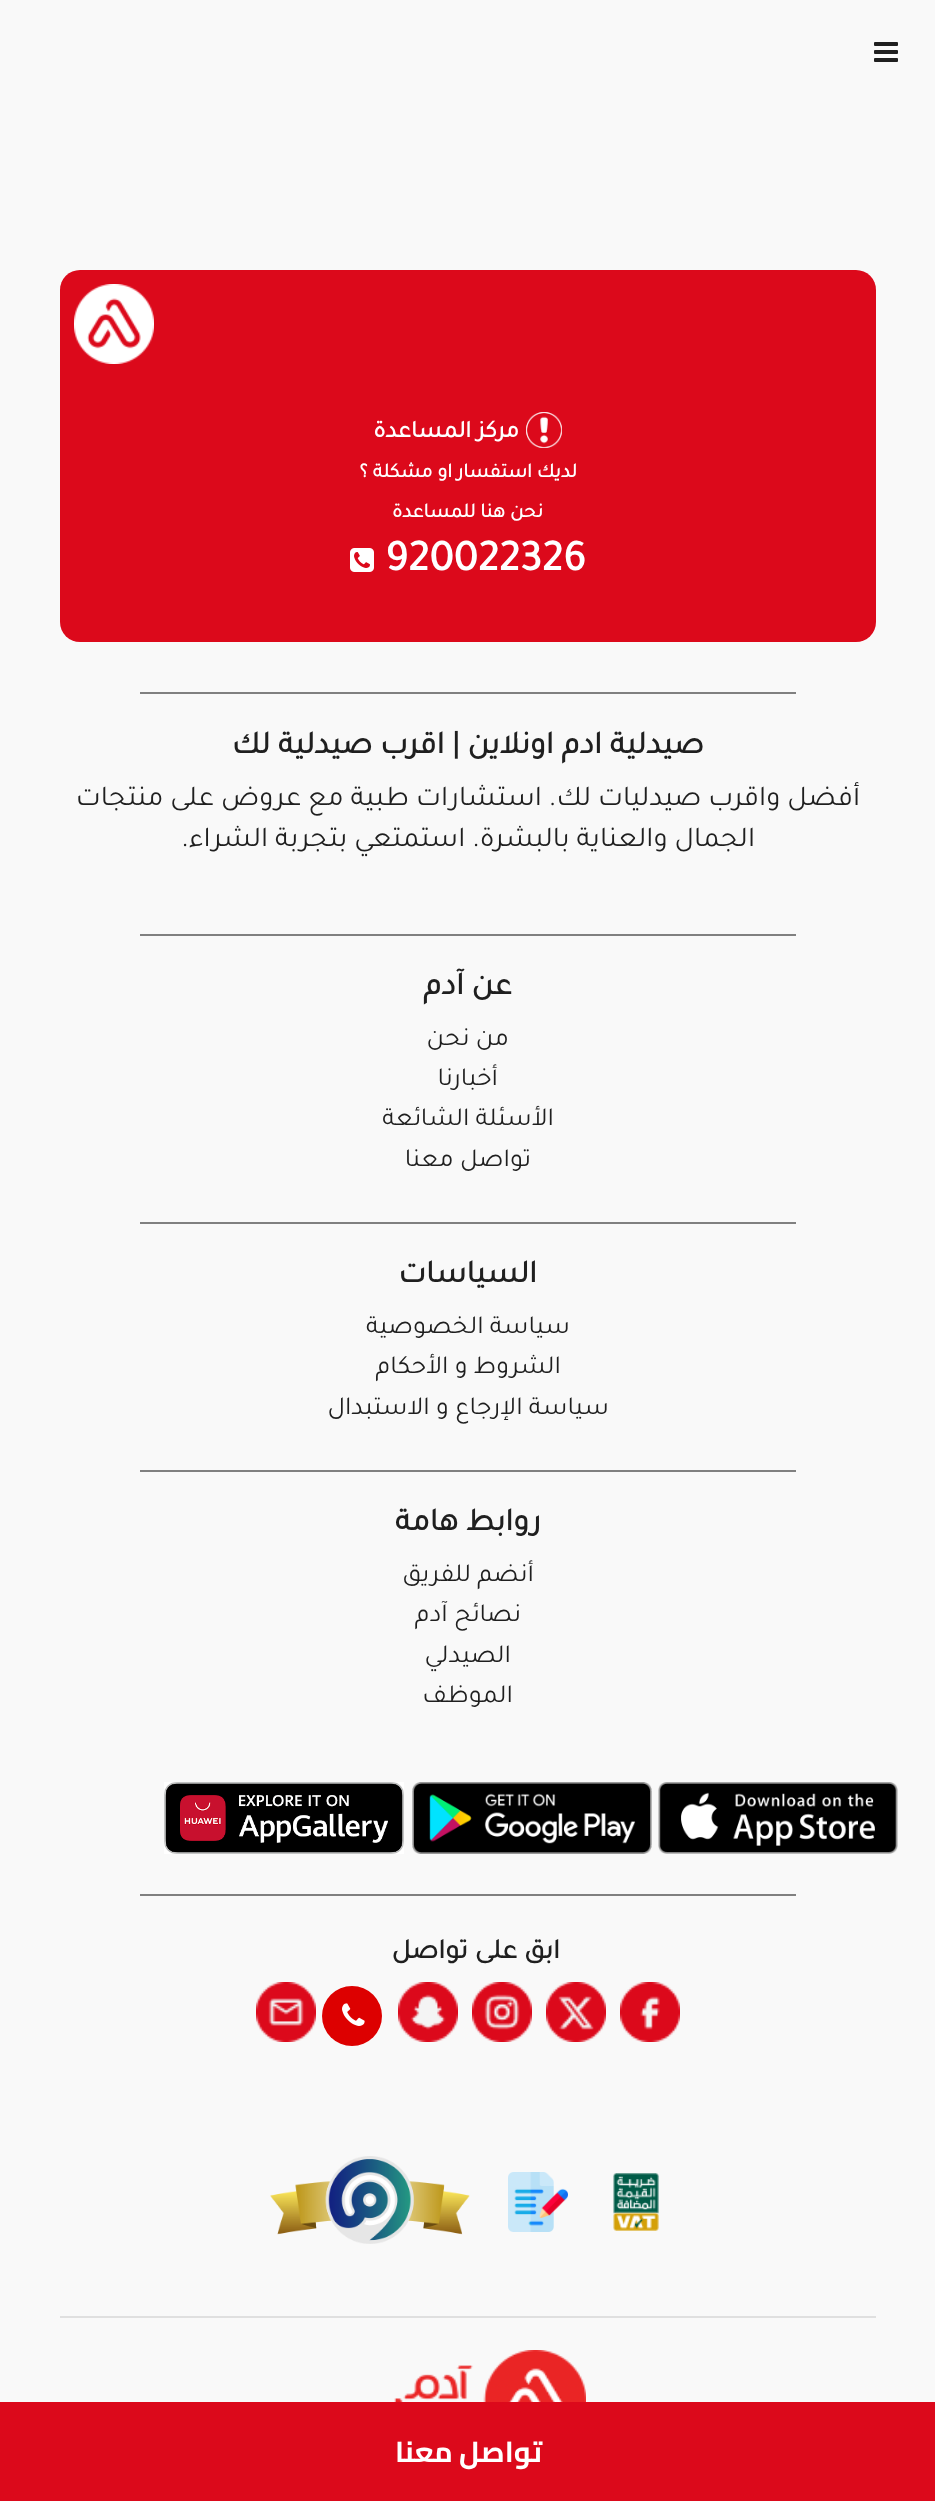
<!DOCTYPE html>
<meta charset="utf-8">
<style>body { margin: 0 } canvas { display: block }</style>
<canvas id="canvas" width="935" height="2501"></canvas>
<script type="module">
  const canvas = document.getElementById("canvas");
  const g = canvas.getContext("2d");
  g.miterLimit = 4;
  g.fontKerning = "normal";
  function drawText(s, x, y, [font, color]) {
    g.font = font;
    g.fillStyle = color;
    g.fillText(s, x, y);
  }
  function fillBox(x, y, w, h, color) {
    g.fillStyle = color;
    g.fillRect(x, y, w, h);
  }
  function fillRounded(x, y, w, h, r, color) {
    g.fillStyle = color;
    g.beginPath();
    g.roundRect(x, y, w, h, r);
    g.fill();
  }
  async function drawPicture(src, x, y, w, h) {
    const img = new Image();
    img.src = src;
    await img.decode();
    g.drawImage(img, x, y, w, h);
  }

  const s1 = ["bold 24px Tajawal", "#FFFFFF"];
  const s2 = ["bold 20px Tajawal", "#FFFFFF"];
  const s3 = ["bold 44px Tajawal", "#FFFFFF"];
  const s4 = ["bold 32px Tajawal", "#1F1F1F"];
  const s5 = ["28.8px Tajawal", "#1F1F1F"];
  const s6 = ["26px Tajawal", "#1F1F1F"];
  const s7 = ["bold 28px Tajawal", "#1F1F1F"];
  const s8 = ["bold 28.8px Cairo", "#FFFFFF"];

  fillBox(0, 0, 935, 2501, "#F9F9F9");
  await drawPicture("pic1.png", 874, 42, 24, 20);
  fillBox(60, 286, 816, 2, "#E0E0E0");
  fillRounded(60, 270, 816, 372, 20, "#DC091B");
  await drawPicture("pic2.png", 74, 284, 80, 80);
  await drawPicture("pic3.png", 526, 412, 36, 36);
  g.direction = "rtl";
  drawText("مركز المساعدة", 519, 437, s1);
  drawText("لديك استفسار او مشكلة ؟", 577, 477, s2);
  drawText("نحن هنا للمساعدة", 543, 517, s2);
  g.direction = "ltr";
  drawText("920022326", 385, 570, s3);
  await drawPicture("pic4.png", 350, 548, 24, 24);
  fillBox(140, 692, 656, 2, "#808080");
  g.direction = "rtl";
  drawText("صيدلية ادم اونلاين | اقرب صيدلية لك", 704, 753, s4);
  drawText("أفضل واقرب صيدليات لك. استشارات طبية مع عروض على منتجات", 860, 805, s5);
  drawText("الجمال والعناية بالبشرة. استمتعي بتجربة الشراء.", 755, 846, s5);
  fillBox(140, 934, 656, 2, "#808080");
  drawText("عن آدم", 512, 994, s4);
  drawText("من نحن", 509, 1045, s6);
  drawText("أخبارنا", 498, 1085, s6);
  drawText("الأسئلة الشائعة", 554, 1125, s6);
  drawText("تواصل معنا", 531, 1166, s6);
  fillBox(140, 1222, 656, 2, "#808080");
  drawText("السياسات", 537, 1282, s4);
  drawText("سياسة الخصوصية", 570, 1333, s6);
  drawText("الشروط و الأحكام", 561, 1373, s6);
  drawText("سياسة الإرجاع و الاستبدال", 609, 1414, s6);
  fillBox(140, 1470, 656, 2, "#808080");
  drawText("روابط هامة", 541, 1530, s4);
  drawText("أنضم للفريق", 534, 1581, s6);
  drawText("نصائح آدم", 521, 1621, s6);
  drawText("الصيدلي", 511, 1662, s6);
  drawText("الموظف", 513, 1702, s6);
  await drawPicture("pic5.png", 658, 1782, 240, 72);
  await drawPicture("pic6.png", 412, 1782, 240, 72);
  await drawPicture("pic7.png", 164, 1782, 240, 72);
  fillBox(140, 1894, 656, 2, "#808080");
  drawText("ابق على تواصل", 560, 1958, s7);
  await drawPicture("pic8.png", 620, 1982, 60, 60);
  await drawPicture("pic9.png", 546, 1982, 60, 60);
  await drawPicture("pic10.png", 472, 1982, 60, 60);
  await drawPicture("pic11.png", 398, 1982, 60, 60);
  g.fillStyle = "#DD0000";
  g.beginPath();
  g.arc(352, 2016, 30, 0, Math.PI * 2);
  g.fill();
  await drawPicture("pic12.png", 342, 2003, 23, 23);
  await drawPicture("pic13.png", 256, 1982, 60, 60);
  await drawPicture("pic14.png", 613, 2173, 46, 58);
  await drawPicture("pic15.png", 508, 2172, 60, 60);
  await drawPicture("pic16.png", 270, 2156, 200, 88);
  fillBox(60, 2316, 816, 2, "#E0E0E0");
  await drawPicture("pic17.png", 394, 2350, 192, 52);
  fillBox(0, 2402, 935, 99, "#DC091B");
  drawText("تواصل معنا", 542, 2462, s8);
</script>
